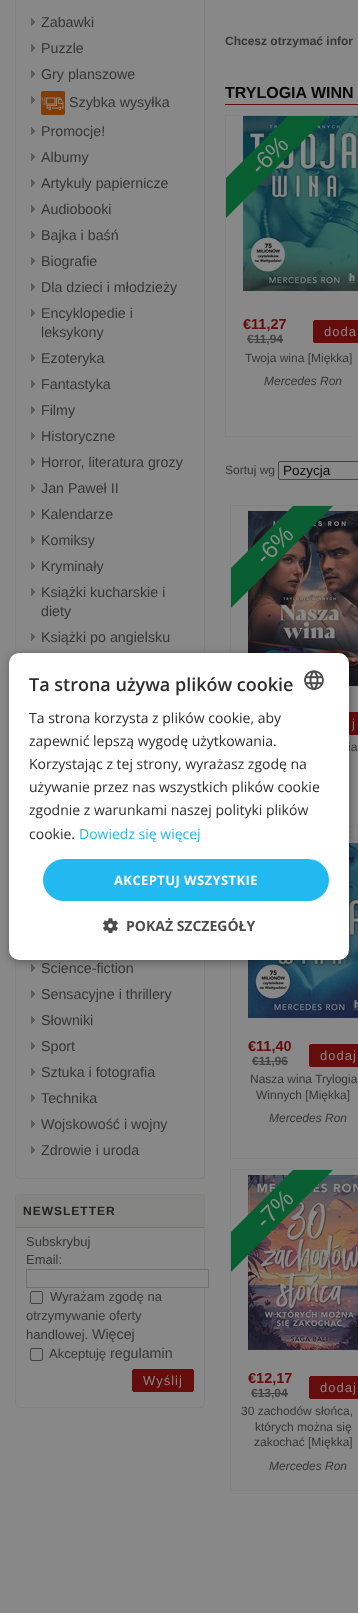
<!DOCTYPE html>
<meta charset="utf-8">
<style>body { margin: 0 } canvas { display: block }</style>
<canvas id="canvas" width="358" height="1613"></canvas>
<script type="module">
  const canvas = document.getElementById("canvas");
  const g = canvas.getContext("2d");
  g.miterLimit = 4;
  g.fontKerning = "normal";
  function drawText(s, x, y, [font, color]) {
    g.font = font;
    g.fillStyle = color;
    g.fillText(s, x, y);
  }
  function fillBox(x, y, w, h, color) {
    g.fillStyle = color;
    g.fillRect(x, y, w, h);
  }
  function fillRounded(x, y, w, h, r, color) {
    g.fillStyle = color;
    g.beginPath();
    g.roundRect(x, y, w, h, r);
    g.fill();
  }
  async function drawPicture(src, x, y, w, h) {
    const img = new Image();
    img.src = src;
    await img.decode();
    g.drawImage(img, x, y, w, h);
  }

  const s1 = ["14.25px Liberation Sans", "#373636"];
  const s2 = ["bold 12px Liberation Sans", "#222222"];
  const s3 = ["13px Liberation Sans", "#373636"];
  const s4 = ["13px Liberation Sans", "#888888"];
  const s5 = ["bold 12px Liberation Sans", "#373636"];
  const s6 = ["bold 16px Liberation Sans", "#090909"];
  const s7 = ["bold 14.5px Liberation Sans", "#650C0D"];
  const s8 = ["bold 12px Liberation Sans", "#434343"];
  const s9 = ["12px Liberation Sans", "#373636"];
  const s10 = ["italic 12px Liberation Sans", "#373636"];
  const s11 = ["13.5px Liberation Sans", "#090909"];
  const s12 = ["600 18px Open Sans", "#2D2D2D"];
  const s13 = ["14px Open Sans", "#2D2D2D"];
  const s14 = ["14px Open Sans", "#22B8F0"];
  const s15 = ["bold 13px Open Sans", "#FFFFFF"];
  const s16 = ["bold 14px Open Sans", "#4D4D4D"];

  fillBox(0, 0, 358, 1613, "#888888");
  g.beginPath();
  g.roundRect(15.5, -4.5, 189, 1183, 3.5);
  g.strokeStyle = "#808080";
  g.stroke();
  await drawPicture("pic1.png", 31, 18, 4, 8);
  drawText("Zabawki", 41, 27, s1);
  await drawPicture("pic1.png", 31, 44, 4, 8);
  drawText("Puzzle", 41, 53, s1);
  await drawPicture("pic1.png", 31, 70, 4, 8);
  drawText("Gry planszowe", 41, 79, s1);
  await drawPicture("pic1.png", 31, 96, 4, 8);
  fillRounded(41, 91, 24, 24, 2, "#813D09");
  await drawPicture("pic2.png", 41, 97, 23, 13);
  drawText("Szybka wysyłka", 69, 107, s1);
  await drawPicture("pic1.png", 31, 127, 4, 8);
  drawText("Promocje!", 41, 136, s1);
  await drawPicture("pic1.png", 31, 153, 4, 8);
  drawText("Albumy", 41, 162, s1);
  await drawPicture("pic1.png", 31, 179, 4, 8);
  drawText("Artykuly papiernicze", 41, 188, s1);
  await drawPicture("pic1.png", 31, 205, 4, 8);
  drawText("Audiobooki", 41, 214, s1);
  await drawPicture("pic1.png", 31, 231, 4, 8);
  drawText("Bajka i baśń", 41, 240, s1);
  await drawPicture("pic1.png", 31, 257, 4, 8);
  drawText("Biografie", 41, 266, s1);
  await drawPicture("pic1.png", 31, 283, 4, 8);
  drawText("Dla dzieci i młodzieży", 41, 292, s1);
  await drawPicture("pic1.png", 31, 309, 4, 8);
  drawText("Encyklopedie i", 41, 318, s1);
  drawText("leksykony", 41, 337, s1);
  await drawPicture("pic1.png", 31, 354, 4, 8);
  drawText("Ezoteryka", 41, 363, s1);
  await drawPicture("pic1.png", 31, 380, 4, 8);
  drawText("Fantastyka", 41, 389, s1);
  await drawPicture("pic1.png", 31, 406, 4, 8);
  drawText("Filmy", 41, 415, s1);
  await drawPicture("pic1.png", 31, 432, 4, 8);
  drawText("Historyczne", 41, 441, s1);
  await drawPicture("pic1.png", 31, 458, 4, 8);
  drawText("Horror, literatura grozy", 41, 467, s1);
  await drawPicture("pic1.png", 31, 484, 4, 8);
  drawText("Jan Paweł II", 41, 493, s1);
  await drawPicture("pic1.png", 31, 510, 4, 8);
  drawText("Kalendarze", 41, 519, s1);
  await drawPicture("pic1.png", 31, 536, 4, 8);
  drawText("Komiksy", 41, 545, s1);
  await drawPicture("pic1.png", 31, 562, 4, 8);
  drawText("Kryminały", 41, 571, s1);
  await drawPicture("pic1.png", 31, 588, 4, 8);
  drawText("Książki kucharskie i", 41, 597, s1);
  drawText("diety", 41, 616, s1);
  await drawPicture("pic1.png", 31, 633, 4, 8);
  drawText("Książki po angielsku", 41, 642, s1);
  await drawPicture("pic1.png", 31, 964, 4, 8);
  drawText("Science-fiction", 41, 973, s1);
  await drawPicture("pic1.png", 31, 990, 4, 8);
  drawText("Sensacyjne i thrillery", 41, 999, s1);
  await drawPicture("pic1.png", 31, 1016, 4, 8);
  drawText("Słowniki", 41, 1025, s1);
  await drawPicture("pic1.png", 31, 1042, 4, 8);
  drawText("Sport", 41, 1051, s1);
  await drawPicture("pic1.png", 31, 1068, 4, 8);
  drawText("Sztuka i fotografia", 41, 1077, s1);
  await drawPicture("pic1.png", 31, 1094, 4, 8);
  drawText("Technika", 41, 1103, s1);
  await drawPicture("pic1.png", 31, 1120, 4, 8);
  drawText("Wojskowość i wojny", 41, 1129, s1);
  await drawPicture("pic1.png", 31, 1146, 4, 8);
  drawText("Zdrowie i uroda", 41, 1155, s1);
  g.beginPath();
  g.roundRect(15.5, 1194.5, 189, 213, 3.5);
  g.stroke();
  g.fillStyle = "#848483";
  g.beginPath();
  g.roundRect(16, 1195, 188, 33, [5, 5, 0, 0]);
  g.fill();
  fillBox(16, 1227, 188, 1, "#727272");
  g.letterSpacing = "1px";
  drawText("NEWSLETTER", 23, 1215, s2);
  g.letterSpacing = "0px";
  drawText("Subskrybuj", 26, 1246, s3);
  drawText("Email:", 26, 1264, s3);
  fillBox(204, 1270, 1, 17, "#888888");
  g.strokeStyle = "#6F6F6F";
  g.strokeRect(26.5, 1269.5, 182, 18);
  g.beginPath();
  g.roundRect(30.5, 1291.5, 12, 12, 1.5);
  g.strokeStyle = "#444444";
  g.stroke();
  drawText("Wyrażam zgodę na", 50, 1301, s3);
  drawText("otrzymywanie oferty", 26, 1320, s3);
  drawText("handlowej.", 26, 1339, s3);
  drawText("Więcej", 92, 1339, s1);
  g.beginPath();
  g.roundRect(30.5, 1348.5, 12, 12, 1.5);
  g.stroke();
  drawText("Akceptuję", 49, 1358, s3);
  drawText("regulamin", 110, 1358, s1);
  g.fillStyle = "#650C0D";
  g.beginPath();
  g.roundRect(132.5, 1369.5, 61, 22, 1.5);
  g.fill();
  g.strokeStyle = "#650C0D";
  g.stroke();
  g.letterSpacing = "1px";
  drawText("Wyślij", 143, 1385, s4);
  g.letterSpacing = "0px";
  drawText("Chcesz otrzymać infor", 225, 45, s5);
  fillBox(225, 104, 133, 1, "#650C0D");
  drawText("TRYLOGIA WINN", 225, 98, s6);
  g.strokeStyle = "#818181";
  g.strokeRect(225.5, 115.5, 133, 321);
  await drawPicture("pic3.png", 243, 116, 115, 175);
  g.save();
  g.beginPath();
  g.rect(226, 116, 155, 200);
  g.clip();
  g.fillStyle = "#095E31";
  g.beginPath();
  g.moveTo(215, 229);
  g.lineTo(215, 189);
  g.lineTo(330, 74);
  g.lineTo(350, 94);
  g.closePath();
  g.fill();
  g.restore();
  g.font = "24px Liberation Sans";
  g.fillStyle = "#888888";
  g.save();
  g.translate(260, 176);
  g.rotate(-45 * Math.PI / 180);
  g.fillText("-6%", 0, 0);
  g.restore();
  drawText("€11,27", 243, 329, s7);
  drawText("€11,94", 247, 343, s8);
  fillBox(247, 339, 36, 1, "#434343");
  g.fillStyle = "#650C0D";
  g.beginPath();
  g.roundRect(313.5, 320.5, 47, 22, 1.5);
  g.fill();
  g.strokeStyle = "#650C0D";
  g.stroke();
  g.letterSpacing = "1px";
  drawText("doda", 324, 336, s4);
  g.letterSpacing = "0px";
  drawText("Twoja wina [Miękka]", 245, 362, s9);
  drawText("Mercedes Ron", 264, 385, s10);
  drawText("Sortuj wg", 225, 474, s9);
  g.beginPath();
  g.roundRect(278.5, 461.5, 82, 18, 1.5);
  g.strokeStyle = "#444444";
  g.stroke();
  drawText("Pozycja", 283, 475, s11);
  g.strokeStyle = "#818181";
  g.strokeRect(230.5, 505.5, 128, 321);
  await drawPicture("pic4.png", 248, 511, 110, 175);
  g.save();
  g.beginPath();
  g.rect(231, 506, 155, 200);
  g.clip();
  g.fillStyle = "#095E31";
  g.beginPath();
  g.moveTo(215, 624);
  g.lineTo(215, 584);
  g.lineTo(335, 464);
  g.lineTo(355, 484);
  g.closePath();
  g.fill();
  g.restore();
  g.font = "24px Liberation Sans";
  g.fillStyle = "#888888";
  g.save();
  g.translate(265, 566);
  g.rotate(-45 * Math.PI / 180);
  g.fillText("-6%", 0, 0);
  g.restore();
  fillBox(349, 713, 9, 21, "#650C0D");
  g.strokeStyle = "#650C0D";
  g.strokeRect(309.5, 712.5, 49, 22);
  g.letterSpacing = "1px";
  drawText("j", 352, 728, s4);
  g.letterSpacing = "0px";
  drawText("ia", 348, 751, s9);
  g.strokeStyle = "#818181";
  g.strokeRect(230.5, 837.5, 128, 321);
  await drawPicture("pic5.png", 248, 843, 110, 175);
  drawText("€11,40", 248, 1051, s7);
  drawText("€11,96", 252, 1065, s8);
  fillBox(252, 1061, 36, 1, "#434343");
  g.fillStyle = "#650C0D";
  g.beginPath();
  g.roundRect(309.5, 1044.5, 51, 22, 1.5);
  g.fill();
  g.strokeStyle = "#650C0D";
  g.stroke();
  g.letterSpacing = "1px";
  drawText("dodaj", 320, 1060, s4);
  g.letterSpacing = "0px";
  drawText("Nasza wina Trylogia", 250, 1083, s9);
  drawText("Winnych [Miękka]", 256, 1099, s9);
  drawText("Mercedes Ron", 269, 1122, s10);
  g.strokeStyle = "#818181";
  g.strokeRect(230.5, 1169.5, 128, 321);
  await drawPicture("pic6.png", 248, 1175, 110, 175);
  g.save();
  g.beginPath();
  g.rect(231, 1170, 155, 200);
  g.clip();
  g.fillStyle = "#095E31";
  g.beginPath();
  g.moveTo(215, 1288);
  g.lineTo(215, 1248);
  g.lineTo(335, 1128);
  g.lineTo(355, 1148);
  g.closePath();
  g.fill();
  g.restore();
  g.font = "24px Liberation Sans";
  g.fillStyle = "#888888";
  g.save();
  g.translate(265, 1230);
  g.rotate(-45 * Math.PI / 180);
  g.fillText("-7%", 0, 0);
  g.restore();
  drawText("€12,17", 248, 1383, s7);
  drawText("€13,04", 251, 1397, s8);
  fillBox(251, 1393, 37, 1, "#434343");
  g.fillStyle = "#650C0D";
  g.beginPath();
  g.roundRect(309.5, 1376.5, 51, 22, 1.5);
  g.fill();
  g.strokeStyle = "#650C0D";
  g.stroke();
  g.letterSpacing = "1px";
  drawText("dodaj", 320, 1392, s4);
  g.letterSpacing = "0px";
  drawText("30 zachodów słońca,", 241, 1415, s9);
  drawText("których można się", 255, 1431, s9);
  drawText("zakochać [Miękka]", 254, 1446, s9);
  drawText("Mercedes Ron", 269, 1470, s10);
  g.fillStyle = "rgba(0, 0, 0, 0.35)";
  g.filter = "blur(4px)";
  g.beginPath();
  g.roundRect(10, 655, 340, 307, 10);
  g.fill();
  g.filter = "none";
  fillRounded(9, 653, 340, 307, 10, "#FFFFFF");
  drawText("Ta strona używa plików cookie", 29, 691, s12);
  await drawPicture("pic7.png", 304, 670, 20, 20);
  drawText("Ta strona korzysta z plików cookie, aby", 29, 723, s13);
  drawText("zapewnić lepszą wygodę użytkowania.", 29, 746, s13);
  drawText("Korzystając z tej strony, wyrażasz zgodę na", 29, 769, s13);
  drawText("używanie przez nas wszystkich plików cookie", 29, 792, s13);
  drawText("zgodnie z warunkami naszej polityki plików", 29, 815, s13);
  drawText("cookie.", 29, 839, s13);
  drawText("Dowiedz się więcej", 79, 839, s14);
  fillRounded(43, 859, 286, 42, 21, "#22B8F0");
  g.letterSpacing = "0.4px";
  drawText("AKCEPTUJ WSZYSTKIE", 114, 885, s15);
  await drawPicture("pic8.png", 103, 918, 15, 15);
  g.letterSpacing = "0px";
  drawText("POKAŻ SZCZEGÓŁY", 126, 931, s16);
</script>
